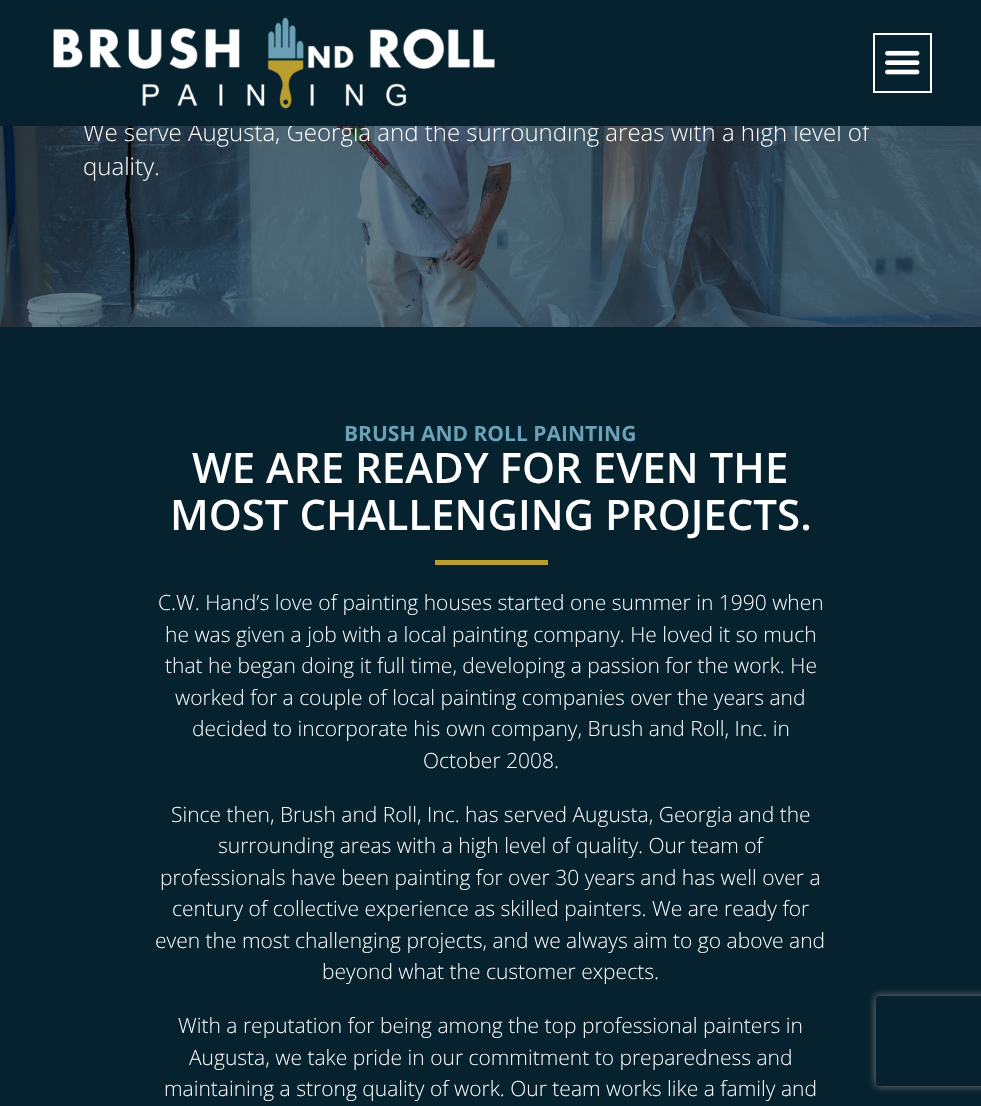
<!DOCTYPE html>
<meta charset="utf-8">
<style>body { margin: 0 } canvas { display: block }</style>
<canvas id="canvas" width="981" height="1106"></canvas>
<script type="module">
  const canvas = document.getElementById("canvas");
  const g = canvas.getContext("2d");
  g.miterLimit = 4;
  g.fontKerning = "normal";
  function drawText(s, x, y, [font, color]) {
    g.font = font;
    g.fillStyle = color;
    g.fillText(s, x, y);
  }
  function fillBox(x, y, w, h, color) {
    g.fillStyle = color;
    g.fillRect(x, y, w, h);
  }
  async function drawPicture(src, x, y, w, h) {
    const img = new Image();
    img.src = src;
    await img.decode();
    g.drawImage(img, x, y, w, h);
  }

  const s1 = ["300 24px Open Sans", "#FFFFFF"];
  const s2 = ["bold 21px Open Sans", "#6BA2B7"];
  const s3 = ["600 42px Open Sans", "#FFFFFF"];
  const s4 = ["300 21px Open Sans", "#FFFFFF"];

  fillBox(0, 0, 981, 1106, "#FFFFFF");
  await drawPicture("pic3.png", 0, 126, 981, 201);
  drawText("We serve Augusta, Georgia and the surrounding areas with a high level of", 83, 141, s1);
  fillBox(0, 0, 981, 126, "#06222F");
  await drawPicture("pic1.png", 53, 17, 442, 92);
  g.strokeStyle = "#FFFFFF";
  g.lineWidth = 2;
  g.strokeRect(874, 34, 57, 58);
  await drawPicture("pic2.png", 885, 50, 35, 25);
  drawText("quality.", 83, 175, s1);
  fillBox(0, 327, 981, 779, "#06222F");
  drawText("BRUSH AND ROLL PAINTING", 344, 441, s2);
  drawText("WE ARE READY FOR EVEN THE", 192, 483, s3);
  drawText("MOST CHALLENGING PROJECTS.", 170, 530, s3);
  fillBox(435, 560, 113, 5, "#BA9D31");
  drawText("C.W. Hand’s love of painting houses started one summer in 1990 when", 158, 610, s4);
  drawText("he was given a job with a local painting company. He loved it so much", 165, 642, s4);
  drawText("that he began doing it full time, developing a passion for the work. He", 165, 673, s4);
  drawText("worked for a couple of local painting companies over the years and", 175, 705, s4);
  drawText("decided to incorporate his own company, Brush and Roll, Inc. in", 192, 736, s4);
  drawText("October 2008.", 423, 768, s4);
  drawText("Since then, Brush and Roll, Inc. has served Augusta, Georgia and the", 171, 822, s4);
  drawText("surrounding areas with a high level of quality. Our team of", 218, 853, s4);
  drawText("professionals have been painting for over 30 years and has well over a", 160, 885, s4);
  drawText("century of collective experience as skilled painters. We are ready for", 172, 916, s4);
  drawText("even the most challenging projects, and we always aim to go above and", 155, 948, s4);
  drawText("beyond what the customer expects.", 322, 979, s4);
  drawText("With a reputation for being among the top professional painters in", 178, 1033, s4);
  drawText("Augusta, we take pride in our commitment to preparedness and", 189, 1065, s4);
  drawText("maintaining a strong quality of work. Our team works like a family and", 164, 1096, s4);
  g.save();
  g.beginPath();
  g.moveTo(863, 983);
  g.lineTo(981, 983);
  g.lineTo(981, 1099);
  g.lineTo(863, 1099);
  g.closePath();
  g.moveTo(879, 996);
  g.lineTo(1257, 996);
  g.bezierCurveTo(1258.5, 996, 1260, 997.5, 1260, 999);
  g.lineTo(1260, 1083);
  g.bezierCurveTo(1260, 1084.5, 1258.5, 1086, 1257, 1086);
  g.lineTo(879, 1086);
  g.bezierCurveTo(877.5, 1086, 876, 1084.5, 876, 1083);
  g.lineTo(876, 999);
  g.bezierCurveTo(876, 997.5, 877.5, 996, 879, 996);
  g.closePath();
  g.clip("evenodd");
  g.fillStyle = "#808080";
  g.filter = "blur(4px)";
  g.beginPath();
  g.roundRect(876, 996, 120, 90, 3);
  g.fill();
  g.filter = "none";
  g.restore();
</script>
